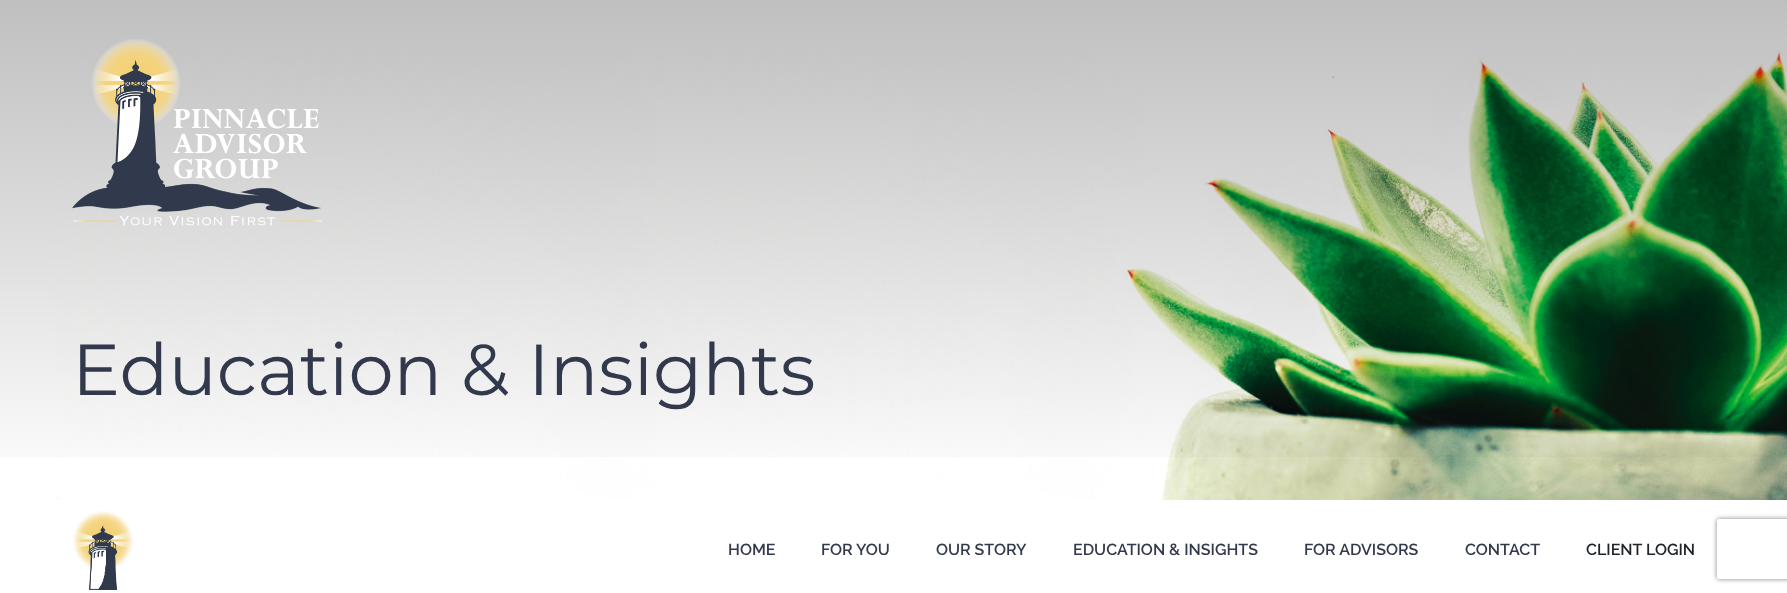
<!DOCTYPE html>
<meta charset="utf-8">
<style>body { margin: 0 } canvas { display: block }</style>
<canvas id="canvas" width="1787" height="593"></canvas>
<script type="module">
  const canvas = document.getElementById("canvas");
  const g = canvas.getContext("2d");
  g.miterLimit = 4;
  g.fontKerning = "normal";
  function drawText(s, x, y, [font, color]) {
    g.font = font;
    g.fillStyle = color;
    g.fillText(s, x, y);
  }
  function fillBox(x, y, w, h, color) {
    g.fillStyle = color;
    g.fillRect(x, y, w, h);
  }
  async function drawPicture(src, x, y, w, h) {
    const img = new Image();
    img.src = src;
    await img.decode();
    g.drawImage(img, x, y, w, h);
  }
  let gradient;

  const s1 = ["72px Montserrat", "#32394C"];
  const s2 = ["600 16px Raleway", "#32394C"];
  const s3 = ["600 16px Raleway", "#212529"];

  fillBox(0, 0, 1787, 593, "#FFFFFF");
  await drawPicture("pic1.png", 55, 50, 1732, 450);
  gradient = g.createLinearGradient(894, 0, 894, 500);
  gradient.addColorStop(0, "rgba(0, 0, 0, 0.25)");
  gradient.addColorStop(1, "rgba(0, 0, 0, 0)");
  g.fillStyle = gradient;
  g.fillRect(0, 0, 1787, 457);
  await drawPicture("pic2.png", 72, 39, 250, 187);
  drawText("Education & Insights", 72, 395, s1);
  await drawPicture("pic3.png", 73, 511, 60, 79);
  drawText("HOME", 728, 555, s2);
  drawText("FOR YOU", 821, 555, s2);
  drawText("OUR STORY", 936, 555, s2);
  drawText("EDUCATION & INSIGHTS", 1073, 555, s2);
  drawText("FOR ADVISORS", 1304, 555, s2);
  drawText("CONTACT", 1465, 555, s2);
  drawText("CLIENT LOGIN", 1586, 555, s3);
  g.save();
  g.beginPath();
  g.moveTo(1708, 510);
  g.lineTo(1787, 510);
  g.lineTo(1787, 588);
  g.lineTo(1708, 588);
  g.closePath();
  g.moveTo(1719, 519);
  g.lineTo(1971, 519);
  g.bezierCurveTo(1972, 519, 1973, 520, 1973, 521);
  g.lineTo(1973, 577);
  g.bezierCurveTo(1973, 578, 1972, 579, 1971, 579);
  g.lineTo(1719, 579);
  g.bezierCurveTo(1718, 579, 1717, 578, 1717, 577);
  g.lineTo(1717, 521);
  g.bezierCurveTo(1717, 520, 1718, 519, 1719, 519);
  g.closePath();
  g.clip("evenodd");
  g.fillStyle = "#808080";
  g.filter = "blur(2.5px)";
  g.beginPath();
  g.roundRect(1717, 519, 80, 60, 2);
  g.fill();
  g.filter = "none";
  g.restore();
</script>
